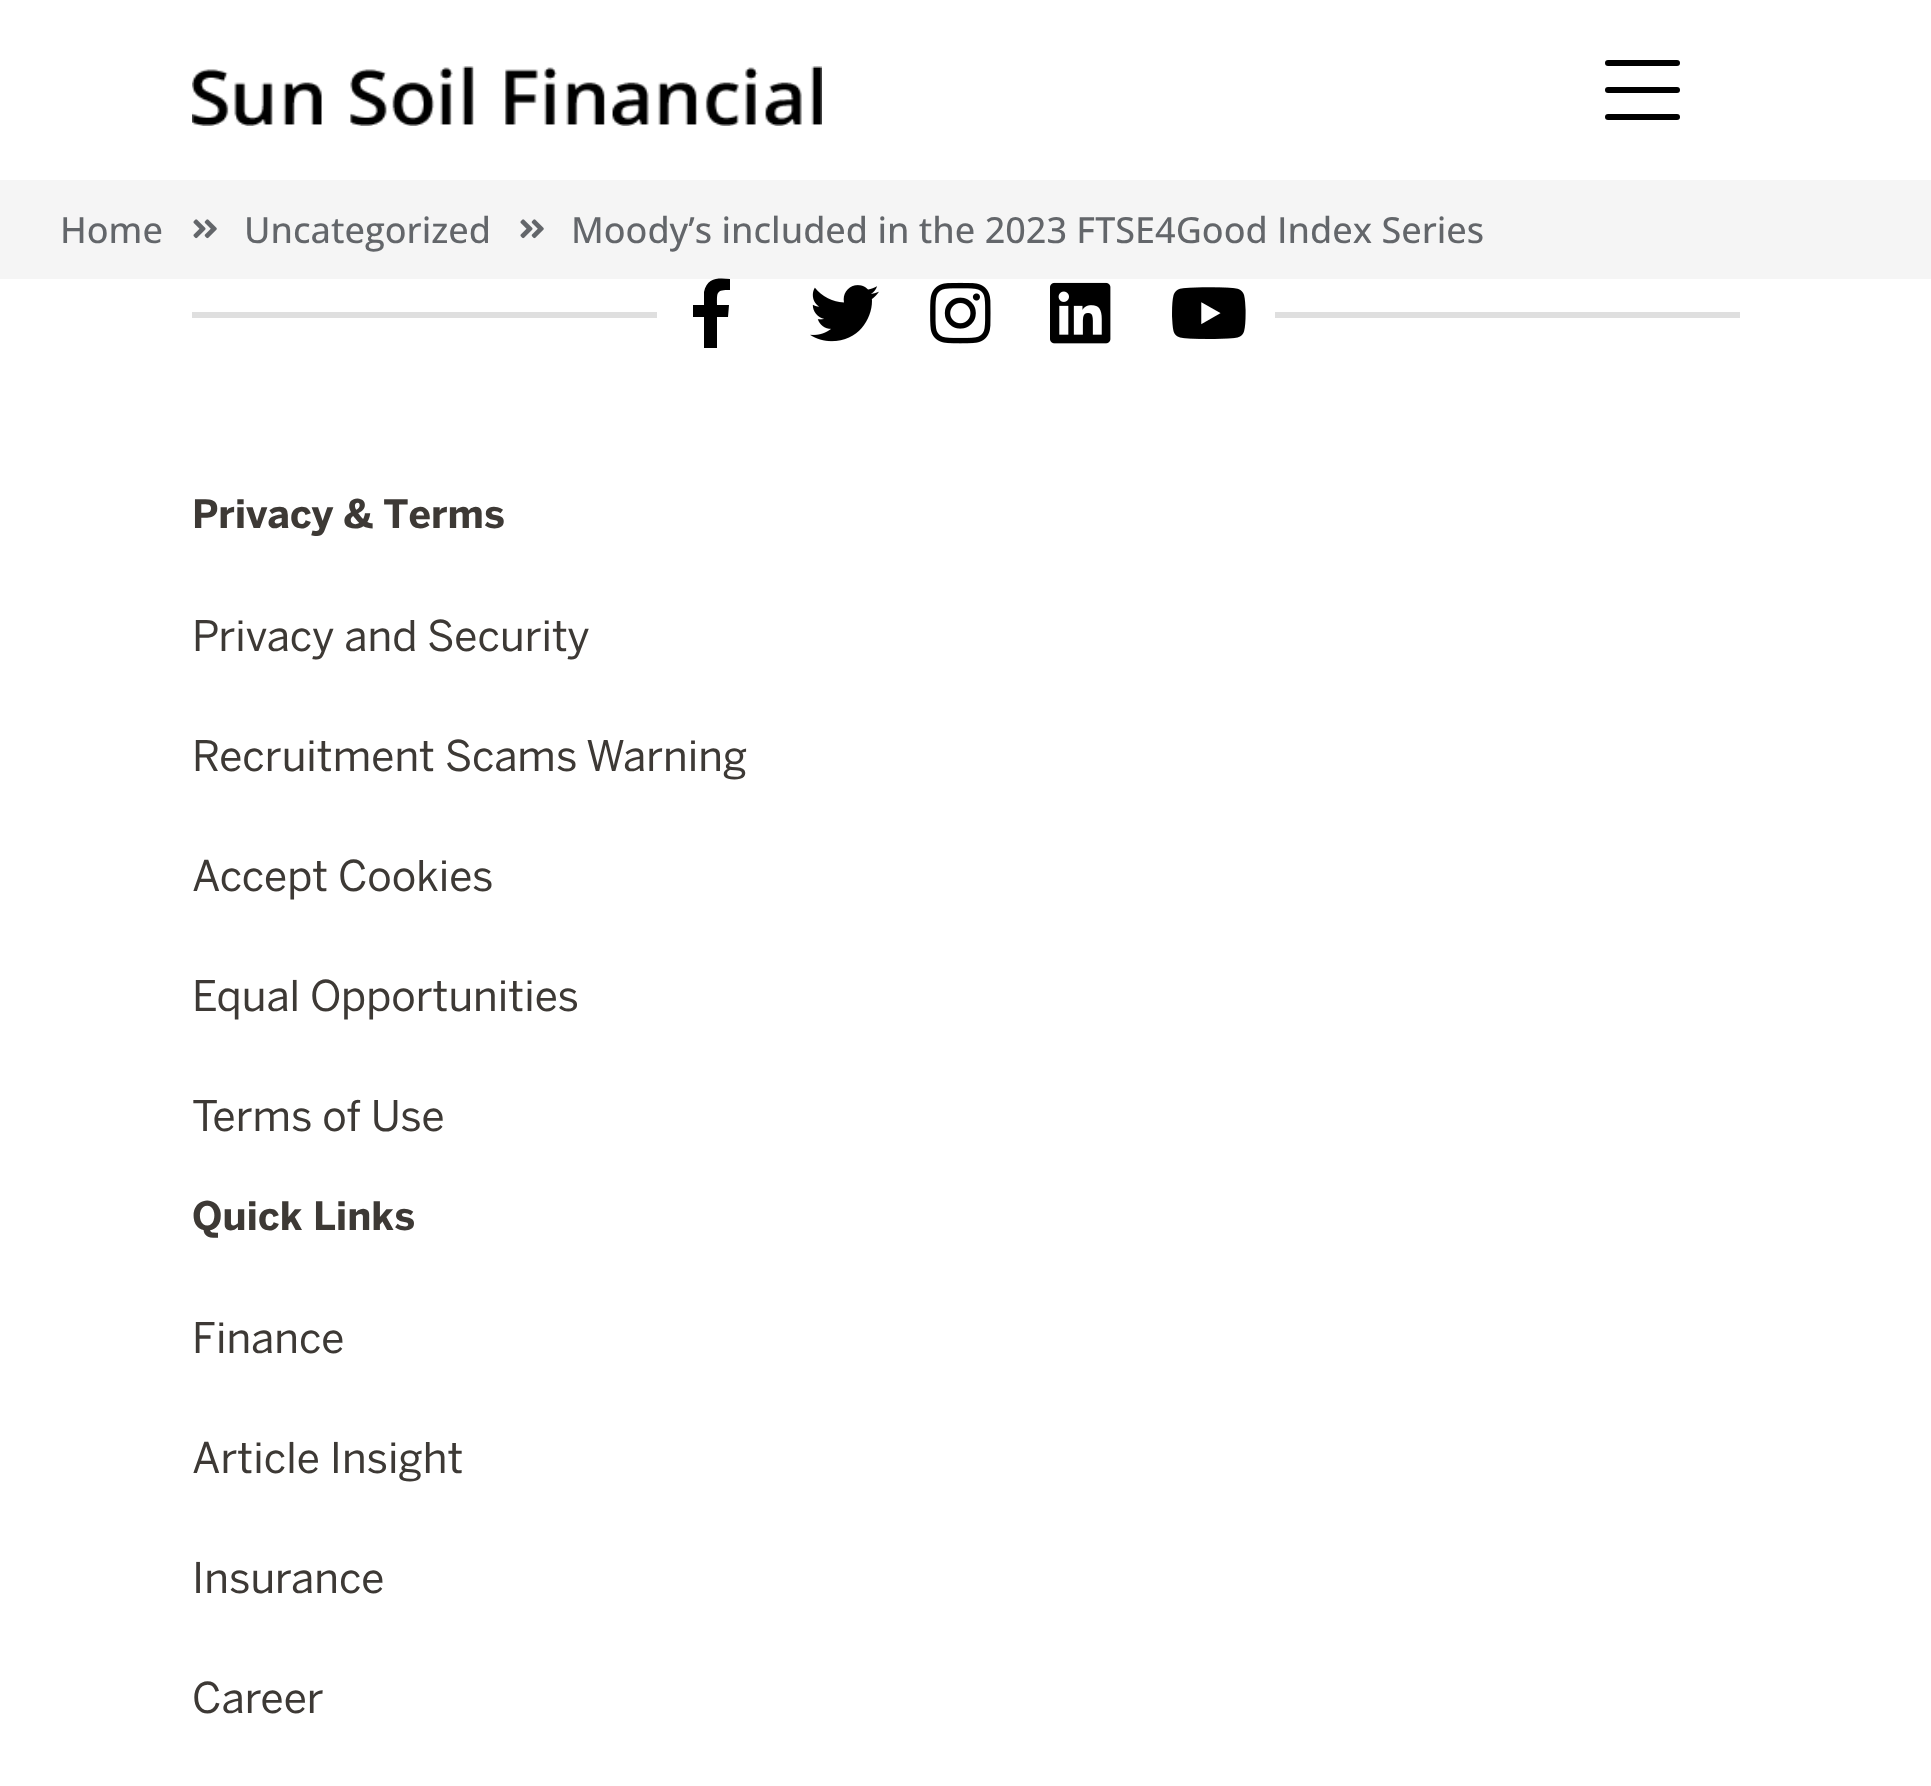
<!DOCTYPE html>
<meta charset="utf-8">
<style>body { margin: 0 } canvas { display: block }</style>
<canvas id="canvas" width="1931" height="1786"></canvas>
<script type="module">
  const canvas = document.getElementById("canvas");
  const g = canvas.getContext("2d");
  g.miterLimit = 4;
  g.fontKerning = "normal";
  function drawText(s, x, y, [font, color]) {
    g.font = font;
    g.fillStyle = color;
    g.fillText(s, x, y);
  }
  function fillBox(x, y, w, h, color) {
    g.fillStyle = color;
    g.fillRect(x, y, w, h);
  }
  function fillRounded(x, y, w, h, r, color) {
    g.fillStyle = color;
    g.beginPath();
    g.roundRect(x, y, w, h, r);
    g.fill();
  }
  async function drawPicture(src, x, y, w, h) {
    const img = new Image();
    img.src = src;
    await img.decode();
    g.drawImage(img, x, y, w, h);
  }

  const s1 = ["500 36px Open Sans", "#63666A"];
  const s2 = ["bold 39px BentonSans", "#3D3935"];
  const s3 = ["42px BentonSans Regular", "#3D3935"];

  fillBox(0, 0, 1931, 1786, "#FFFFFF");
  await drawPicture("pic1.png", 192, 66, 630, 60);
  fillRounded(1605, 87, 75, 6, 3, "#000000");
  fillRounded(1605, 60, 75, 6, 3, "#000000");
  fillRounded(1605, 114, 75, 6, 3, "#000000");
  fillBox(0, 180, 1931, 99, "#F5F5F5");
  drawText("Home", 60, 243, s1);
  await drawPicture("pic2.png", 193, 219, 24, 20);
  drawText("Uncategorized", 244, 243, s1);
  await drawPicture("pic2.png", 520, 219, 24, 20);
  drawText("Moody’s included in the 2023 FTSE4Good Index Series", 571, 243, s1);
  fillBox(192, 312, 465, 6, "#DFDFDF");
  g.fillStyle = "#000000";
  g.beginPath();
  g.moveTo(728, 317);
  g.lineTo(717, 317);
  g.lineTo(717, 348);
  g.lineTo(704, 348);
  g.lineTo(704, 317);
  g.lineTo(693, 317);
  g.lineTo(693, 305);
  g.lineTo(704, 305);
  g.lineTo(704, 292);
  g.bezierCurveTo(707, 277, 719, 278, 730, 279);
  g.lineTo(730, 290);
  g.bezierCurveTo(716, 290, 717, 292, 717, 305);
  g.lineTo(729, 305);
  g.closePath();
  g.fill();
  await drawPicture("pic3.png", 810, 285, 69, 57);
  await drawPicture("pic4.png", 930, 282, 61, 62);
  await drawPicture("pic5.png", 1050, 282, 61, 62);
  await drawPicture("pic6.png", 1172, 287, 74, 52);
  fillBox(1275, 312, 465, 6, "#DFDFDF");
  drawText("Privacy & Terms", 192, 528, s2);
  drawText("Privacy and Security", 192, 651, s3);
  drawText("Recruitment Scams Warning", 192, 771, s3);
  drawText("Accept Cookies", 192, 891, s3);
  drawText("Equal Opportunities", 192, 1011, s3);
  drawText("Terms of Use", 192, 1131, s3);
  drawText("Quick Links", 192, 1230, s2);
  drawText("Finance", 192, 1353, s3);
  drawText("Article Insight", 192, 1473, s3);
  drawText("Insurance", 192, 1593, s3);
  drawText("Career", 192, 1713, s3);
</script>
